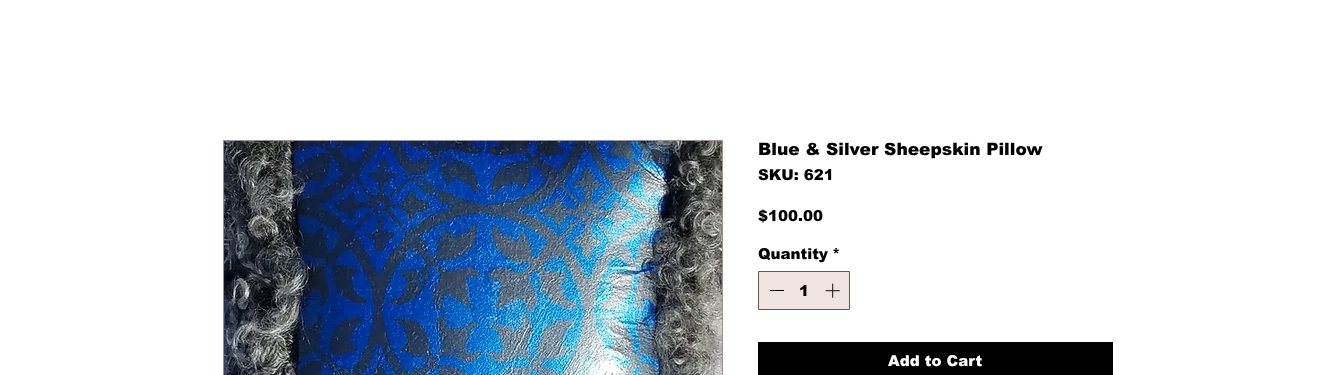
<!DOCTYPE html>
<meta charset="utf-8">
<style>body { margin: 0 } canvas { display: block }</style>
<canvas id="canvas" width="1335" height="375"></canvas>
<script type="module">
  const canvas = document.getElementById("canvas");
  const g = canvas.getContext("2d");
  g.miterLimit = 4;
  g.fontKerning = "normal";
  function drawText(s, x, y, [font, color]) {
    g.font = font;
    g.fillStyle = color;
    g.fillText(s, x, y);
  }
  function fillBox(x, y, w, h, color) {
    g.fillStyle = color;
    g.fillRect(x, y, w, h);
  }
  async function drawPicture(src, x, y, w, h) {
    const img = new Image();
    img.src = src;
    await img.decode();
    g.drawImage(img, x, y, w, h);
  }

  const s1 = ["900 17px arial", "#000000"];
  const s2 = ["900 15px arial", "#000000"];
  const s3 = ["900 15px arial", "#FFFFFF"];

  fillBox(0, 0, 1335, 375, "#FFFFFF");
  g.strokeStyle = "#9E908A";
  g.strokeRect(223.5, 140.5, 499, 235);
  await drawPicture("pic1.png", 224, 141, 498, 234);
  drawText("Blue & Silver Sheepskin Pillow", 758, 155, s1);
  drawText("SKU: 621", 758, 180, s2);
  drawText("$100.00", 758, 221, s2);
  drawText("Quantity", 758, 259, s2);
  drawText("*", 832, 259, s2);
  g.fillStyle = "#EEE4E0";
  g.beginPath();
  g.rect(758.5, 271.5, 91, 38);
  g.fill();
  g.strokeStyle = "#5F5B5A";
  g.stroke();
  fillBox(770, 290, 14, 1, "#000000");
  drawText("1", 799, 296, s2);
  await drawPicture("pic2.png", 825, 283, 15, 15);
  fillBox(758, 342, 355, 33, "#000000");
  drawText("Add to Cart", 888, 366, s3);
</script>
